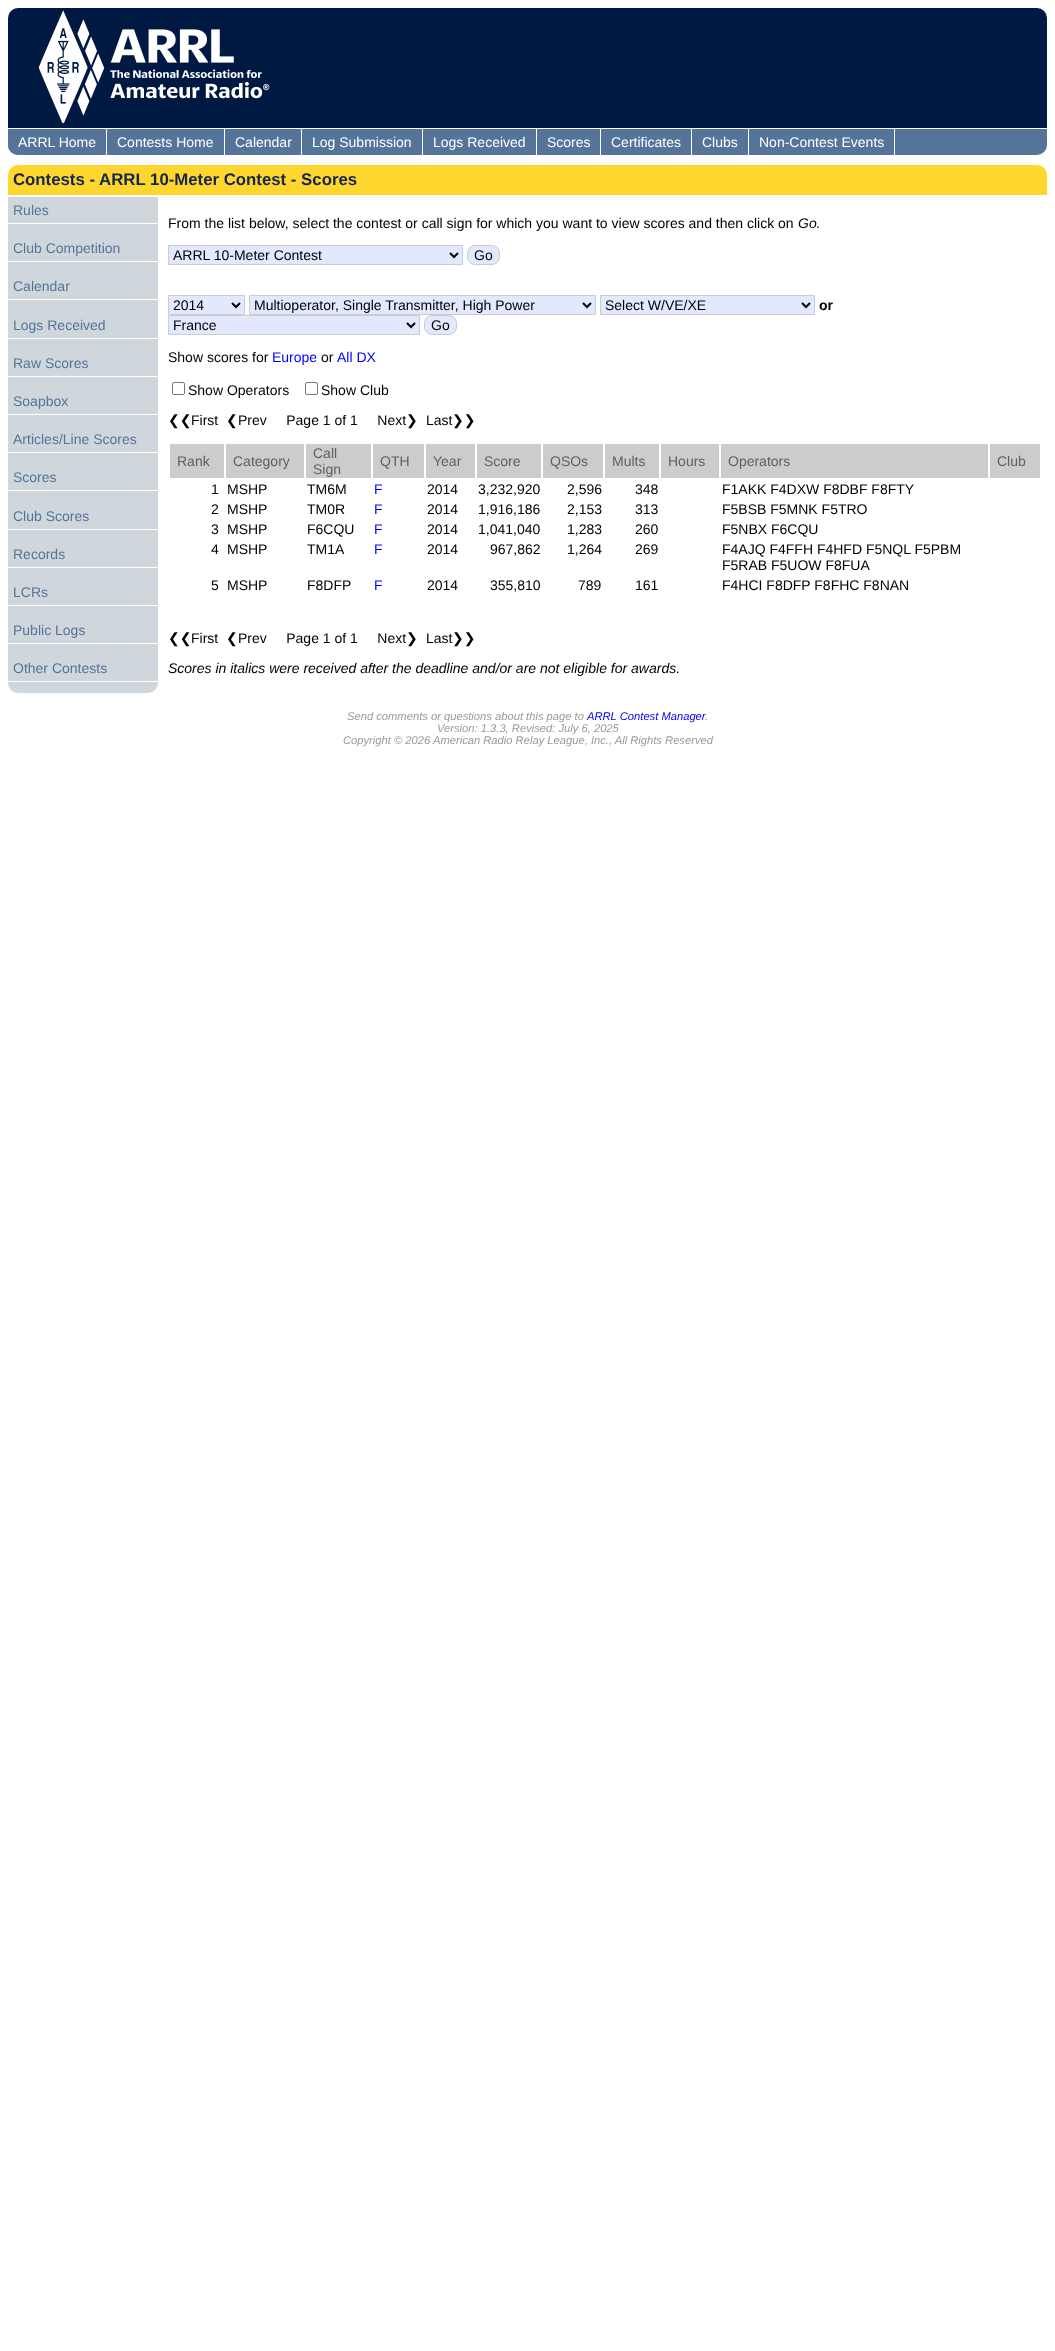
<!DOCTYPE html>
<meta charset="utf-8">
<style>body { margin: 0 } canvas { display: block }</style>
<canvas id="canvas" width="1055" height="2351"></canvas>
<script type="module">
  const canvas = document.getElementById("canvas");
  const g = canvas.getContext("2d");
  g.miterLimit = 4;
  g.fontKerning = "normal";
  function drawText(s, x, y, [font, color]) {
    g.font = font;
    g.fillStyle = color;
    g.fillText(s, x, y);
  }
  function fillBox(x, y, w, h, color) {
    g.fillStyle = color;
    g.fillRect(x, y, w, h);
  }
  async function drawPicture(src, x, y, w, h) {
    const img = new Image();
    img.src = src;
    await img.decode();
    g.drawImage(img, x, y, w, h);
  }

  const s1 = ["14px Liberation Sans", "#FFFFFF"];
  const s2 = ["bold 16.8px Liberation Sans", "#14264D"];
  const s3 = ["14px Liberation Sans", "#557499"];
  const s4 = ["14px Liberation Sans", "#000000"];
  const s5 = ["italic 14px Liberation Sans", "#000000"];
  const s6 = ["bold 14px Liberation Sans", "#000000"];
  const s7 = ["14px Liberation Sans", "#0000FF"];
  const s8 = ["14px DejaVu Sans", "#000000"];
  const s9 = ["14px Liberation Sans", "#606060"];
  const s10 = ["italic 11.2px Liberation Sans", "#999999"];
  const s11 = ["italic 11.2px Liberation Sans", "#0000FF"];

  fillBox(0, 0, 1055, 2351, "#FFFFFF");
  g.fillStyle = "#001943";
  g.beginPath();
  g.roundRect(8, 8, 1039, 120, [10, 10, 0, 0]);
  g.fill();
  await drawPicture("pic1.png", 38, 10, 232, 113);
  g.fillStyle = "#557499";
  g.beginPath();
  g.roundRect(8, 129, 1039, 26, [0, 0, 10, 10]);
  g.fill();
  g.beginPath();
  g.roundRect(8, 129, 99, 26, [0, 0, 0, 10]);
  g.fill();
  fillBox(106, 129, 1, 26, "#FFFFFF");
  drawText("ARRL Home", 18, 147, s1);
  fillBox(224, 129, 1, 26, "#FFFFFF");
  drawText("Contests Home", 117, 147, s1);
  fillBox(301, 129, 1, 26, "#FFFFFF");
  drawText("Calendar", 235, 147, s1);
  fillBox(422, 129, 1, 26, "#FFFFFF");
  drawText("Log Submission", 312, 147, s1);
  fillBox(536, 129, 1, 26, "#FFFFFF");
  drawText("Logs Received", 433, 147, s1);
  fillBox(600, 129, 1, 26, "#FFFFFF");
  drawText("Scores", 547, 147, s1);
  fillBox(691, 129, 1, 26, "#FFFFFF");
  drawText("Certificates", 611, 147, s1);
  fillBox(748, 129, 1, 26, "#FFFFFF");
  drawText("Clubs", 702, 147, s1);
  fillBox(894, 129, 1, 26, "#FFFFFF");
  drawText("Non-Contest Events", 759, 147, s1);
  g.fillStyle = "#FED62E";
  g.beginPath();
  g.roundRect(8, 165, 1039, 30, [10, 10, 0, 0]);
  g.fill();
  drawText("Contests - ARRL 10-Meter Contest - Scores", 13, 185, s2);
  g.fillStyle = "#D0D7DC";
  g.beginPath();
  g.roundRect(8, 197, 150, 496, [0, 0, 10, 10]);
  g.fill();
  fillBox(8, 223, 150, 1, "#FFFFFF");
  drawText("Rules", 13, 215, s3);
  fillBox(8, 261, 150, 1, "#FFFFFF");
  drawText("Club Competition", 13, 253, s3);
  fillBox(8, 299, 150, 1, "#FFFFFF");
  drawText("Calendar", 13, 291, s3);
  fillBox(8, 338, 150, 1, "#FFFFFF");
  drawText("Logs Received", 13, 330, s3);
  fillBox(8, 376, 150, 1, "#FFFFFF");
  drawText("Raw Scores", 13, 368, s3);
  fillBox(8, 414, 150, 1, "#FFFFFF");
  drawText("Soapbox", 13, 406, s3);
  fillBox(8, 452, 150, 1, "#FFFFFF");
  drawText("Articles/Line Scores", 13, 444, s3);
  fillBox(8, 490, 150, 1, "#FFFFFF");
  drawText("Scores", 13, 482, s3);
  fillBox(8, 529, 150, 1, "#FFFFFF");
  drawText("Club Scores", 13, 521, s3);
  fillBox(8, 567, 150, 1, "#FFFFFF");
  drawText("Records", 13, 559, s3);
  fillBox(8, 605, 150, 1, "#FFFFFF");
  drawText("LCRs", 13, 597, s3);
  fillBox(8, 643, 150, 1, "#FFFFFF");
  drawText("Public Logs", 13, 635, s3);
  fillBox(8, 681, 150, 1, "#FFFFFF");
  drawText("Other Contests", 13, 673, s3);
  drawText("From the list below, select the contest or call sign for which you want to view scores and then click on", 168, 228, s4);
  drawText("Go", 798, 228, s5);
  drawText(".", 816, 228, s4);
  g.fillStyle = "#E2E9FF";
  g.beginPath();
  g.rect(168.5, 245.5, 294, 19);
  g.fill();
  g.strokeStyle = "#CCCCCC";
  g.stroke();
  g.beginPath();
  g.moveTo(450, 253);
  g.lineTo(454, 257);
  g.lineTo(458, 253);
  g.strokeStyle = "#000000";
  g.lineWidth = 2;
  g.stroke();
  drawText("ARRL 10-Meter Contest", 173, 260, s4);
  g.fillStyle = "#E2E9FF";
  g.beginPath();
  g.roundRect(467.5, 245.5, 32, 19, 7.5);
  g.fill();
  g.strokeStyle = "#CCCCCC";
  g.lineWidth = 1;
  g.stroke();
  drawText("Go", 474, 260, s4);
  g.fillStyle = "#E2E9FF";
  g.beginPath();
  g.rect(168.5, 295.5, 76, 19);
  g.fill();
  g.stroke();
  g.beginPath();
  g.moveTo(232, 303);
  g.lineTo(236, 307);
  g.lineTo(240, 303);
  g.strokeStyle = "#000000";
  g.lineWidth = 2;
  g.stroke();
  drawText("2014", 173, 310, s4);
  g.fillStyle = "#E2E9FF";
  g.beginPath();
  g.rect(249.5, 295.5, 346, 19);
  g.fill();
  g.strokeStyle = "#CCCCCC";
  g.lineWidth = 1;
  g.stroke();
  g.beginPath();
  g.moveTo(583, 303);
  g.lineTo(587, 307);
  g.lineTo(591, 303);
  g.strokeStyle = "#000000";
  g.lineWidth = 2;
  g.stroke();
  drawText("Multioperator, Single Transmitter, High Power", 254, 310, s4);
  g.fillStyle = "#E2E9FF";
  g.beginPath();
  g.rect(600.5, 295.5, 214, 19);
  g.fill();
  g.strokeStyle = "#CCCCCC";
  g.lineWidth = 1;
  g.stroke();
  g.beginPath();
  g.moveTo(802, 303);
  g.lineTo(806, 307);
  g.lineTo(810, 303);
  g.strokeStyle = "#000000";
  g.lineWidth = 2;
  g.stroke();
  drawText("Select W/VE/XE", 605, 310, s4);
  drawText("or", 819, 310, s6);
  g.fillStyle = "#E2E9FF";
  g.beginPath();
  g.rect(168.5, 315.5, 251, 19);
  g.fill();
  g.strokeStyle = "#CCCCCC";
  g.lineWidth = 1;
  g.stroke();
  g.beginPath();
  g.moveTo(407, 323);
  g.lineTo(411, 327);
  g.lineTo(415, 323);
  g.strokeStyle = "#000000";
  g.lineWidth = 2;
  g.stroke();
  drawText("France", 173, 330, s4);
  g.fillStyle = "#E2E9FF";
  g.beginPath();
  g.roundRect(424.5, 315.5, 32, 19, 7.5);
  g.fill();
  g.strokeStyle = "#CCCCCC";
  g.lineWidth = 1;
  g.stroke();
  drawText("Go", 431, 330, s4);
  drawText("Show scores for", 168, 362, s4);
  drawText("Europe", 272, 362, s7);
  drawText("or", 321, 362, s4);
  drawText("All DX", 337, 362, s7);
  g.beginPath();
  g.roundRect(172.5, 382.5, 12, 12, 1.5);
  g.strokeStyle = "#767676";
  g.stroke();
  drawText("Show Operators", 188, 395, s4);
  g.beginPath();
  g.roundRect(305.5, 382.5, 12, 12, 1.5);
  g.stroke();
  drawText("Show Club", 321, 395, s4);
  drawText("❮❮", 168, 425, s8);
  drawText("First", 191, 425, s4);
  drawText("❮", 226, 425, s8);
  drawText("Prev     Page 1 of 1     Next", 238, 425, s4);
  drawText("❯", 406, 425, s8);
  drawText("Last", 426, 425, s4);
  drawText("❯❯", 452, 425, s8);
  fillBox(170, 444, 54, 34, "#CCCCCC");
  drawText("Rank", 177, 466, s9);
  fillBox(226, 444, 78, 34, "#CCCCCC");
  drawText("Category", 233, 466, s9);
  fillBox(306, 444, 65, 34, "#CCCCCC");
  drawText("Call", 313, 458, s9);
  drawText("Sign", 313, 474, s9);
  fillBox(373, 444, 51, 34, "#CCCCCC");
  drawText("QTH", 380, 466, s9);
  fillBox(426, 444, 49, 34, "#CCCCCC");
  drawText("Year", 433, 466, s9);
  fillBox(477, 444, 64, 34, "#CCCCCC");
  drawText("Score", 484, 466, s9);
  fillBox(543, 444, 60, 34, "#CCCCCC");
  drawText("QSOs", 550, 466, s9);
  fillBox(605, 444, 54, 34, "#CCCCCC");
  drawText("Mults", 612, 466, s9);
  fillBox(661, 444, 58, 34, "#CCCCCC");
  drawText("Hours", 668, 466, s9);
  fillBox(721, 444, 267, 34, "#CCCCCC");
  drawText("Operators", 728, 466, s9);
  fillBox(990, 444, 50, 34, "#CCCCCC");
  drawText("Club", 997, 466, s9);
  drawText("1", 211, 494, s4);
  drawText("MSHP", 227, 494, s4);
  drawText("TM6M", 307, 494, s4);
  drawText("F", 374, 494, s7);
  drawText("2014", 427, 494, s4);
  drawText("3,232,920", 478, 494, s4);
  drawText("2,596", 567, 494, s4);
  drawText("348", 635, 494, s4);
  drawText("F1AKK F4DXW F8DBF F8FTY", 722, 494, s4);
  drawText("2", 211, 514, s4);
  drawText("MSHP", 227, 514, s4);
  drawText("TM0R", 307, 514, s4);
  drawText("F", 374, 514, s7);
  drawText("2014", 427, 514, s4);
  drawText("1,916,186", 478, 514, s4);
  drawText("2,153", 567, 514, s4);
  drawText("313", 635, 514, s4);
  drawText("F5BSB F5MNK F5TRO", 722, 514, s4);
  drawText("3", 211, 534, s4);
  drawText("MSHP", 227, 534, s4);
  drawText("F6CQU", 307, 534, s4);
  drawText("F", 374, 534, s7);
  drawText("2014", 427, 534, s4);
  drawText("1,041,040", 478, 534, s4);
  drawText("1,283", 567, 534, s4);
  drawText("260", 635, 534, s4);
  drawText("F5NBX F6CQU", 722, 534, s4);
  drawText("4", 211, 554, s4);
  drawText("MSHP", 227, 554, s4);
  drawText("TM1A", 307, 554, s4);
  drawText("F", 374, 554, s7);
  drawText("2014", 427, 554, s4);
  drawText("967,862", 490, 554, s4);
  drawText("1,264", 567, 554, s4);
  drawText("269", 635, 554, s4);
  drawText("F4AJQ F4FFH F4HFD F5NQL F5PBM", 722, 554, s4);
  drawText("F5RAB F5UOW F8FUA", 722, 570, s4);
  drawText("5", 211, 590, s4);
  drawText("MSHP", 227, 590, s4);
  drawText("F8DFP", 307, 590, s4);
  drawText("F", 374, 590, s7);
  drawText("2014", 427, 590, s4);
  drawText("355,810", 490, 590, s4);
  drawText("789", 578, 590, s4);
  drawText("161", 635, 590, s4);
  drawText("F4HCI F8DFP F8FHC F8NAN", 722, 590, s4);
  drawText("❮❮", 168, 643, s8);
  drawText("First", 191, 643, s4);
  drawText("❮", 226, 643, s8);
  drawText("Prev     Page 1 of 1     Next", 238, 643, s4);
  drawText("❯", 406, 643, s8);
  drawText("Last", 426, 643, s4);
  drawText("❯❯", 452, 643, s8);
  drawText("Scores in italics were received after the deadline and/or are not eligible for awards.", 168, 673, s5);
  drawText("Send comments or questions about this page to", 347, 720, s10);
  drawText("ARRL Contest Manager", 587, 720, s11);
  drawText(".", 705, 720, s10);
  drawText("Version: 1.3.3, Revised: July 6, 2025", 437, 732, s10);
  drawText("Copyright © 2026 American Radio Relay League, Inc., All Rights Reserved", 343, 744, s10);
</script>
